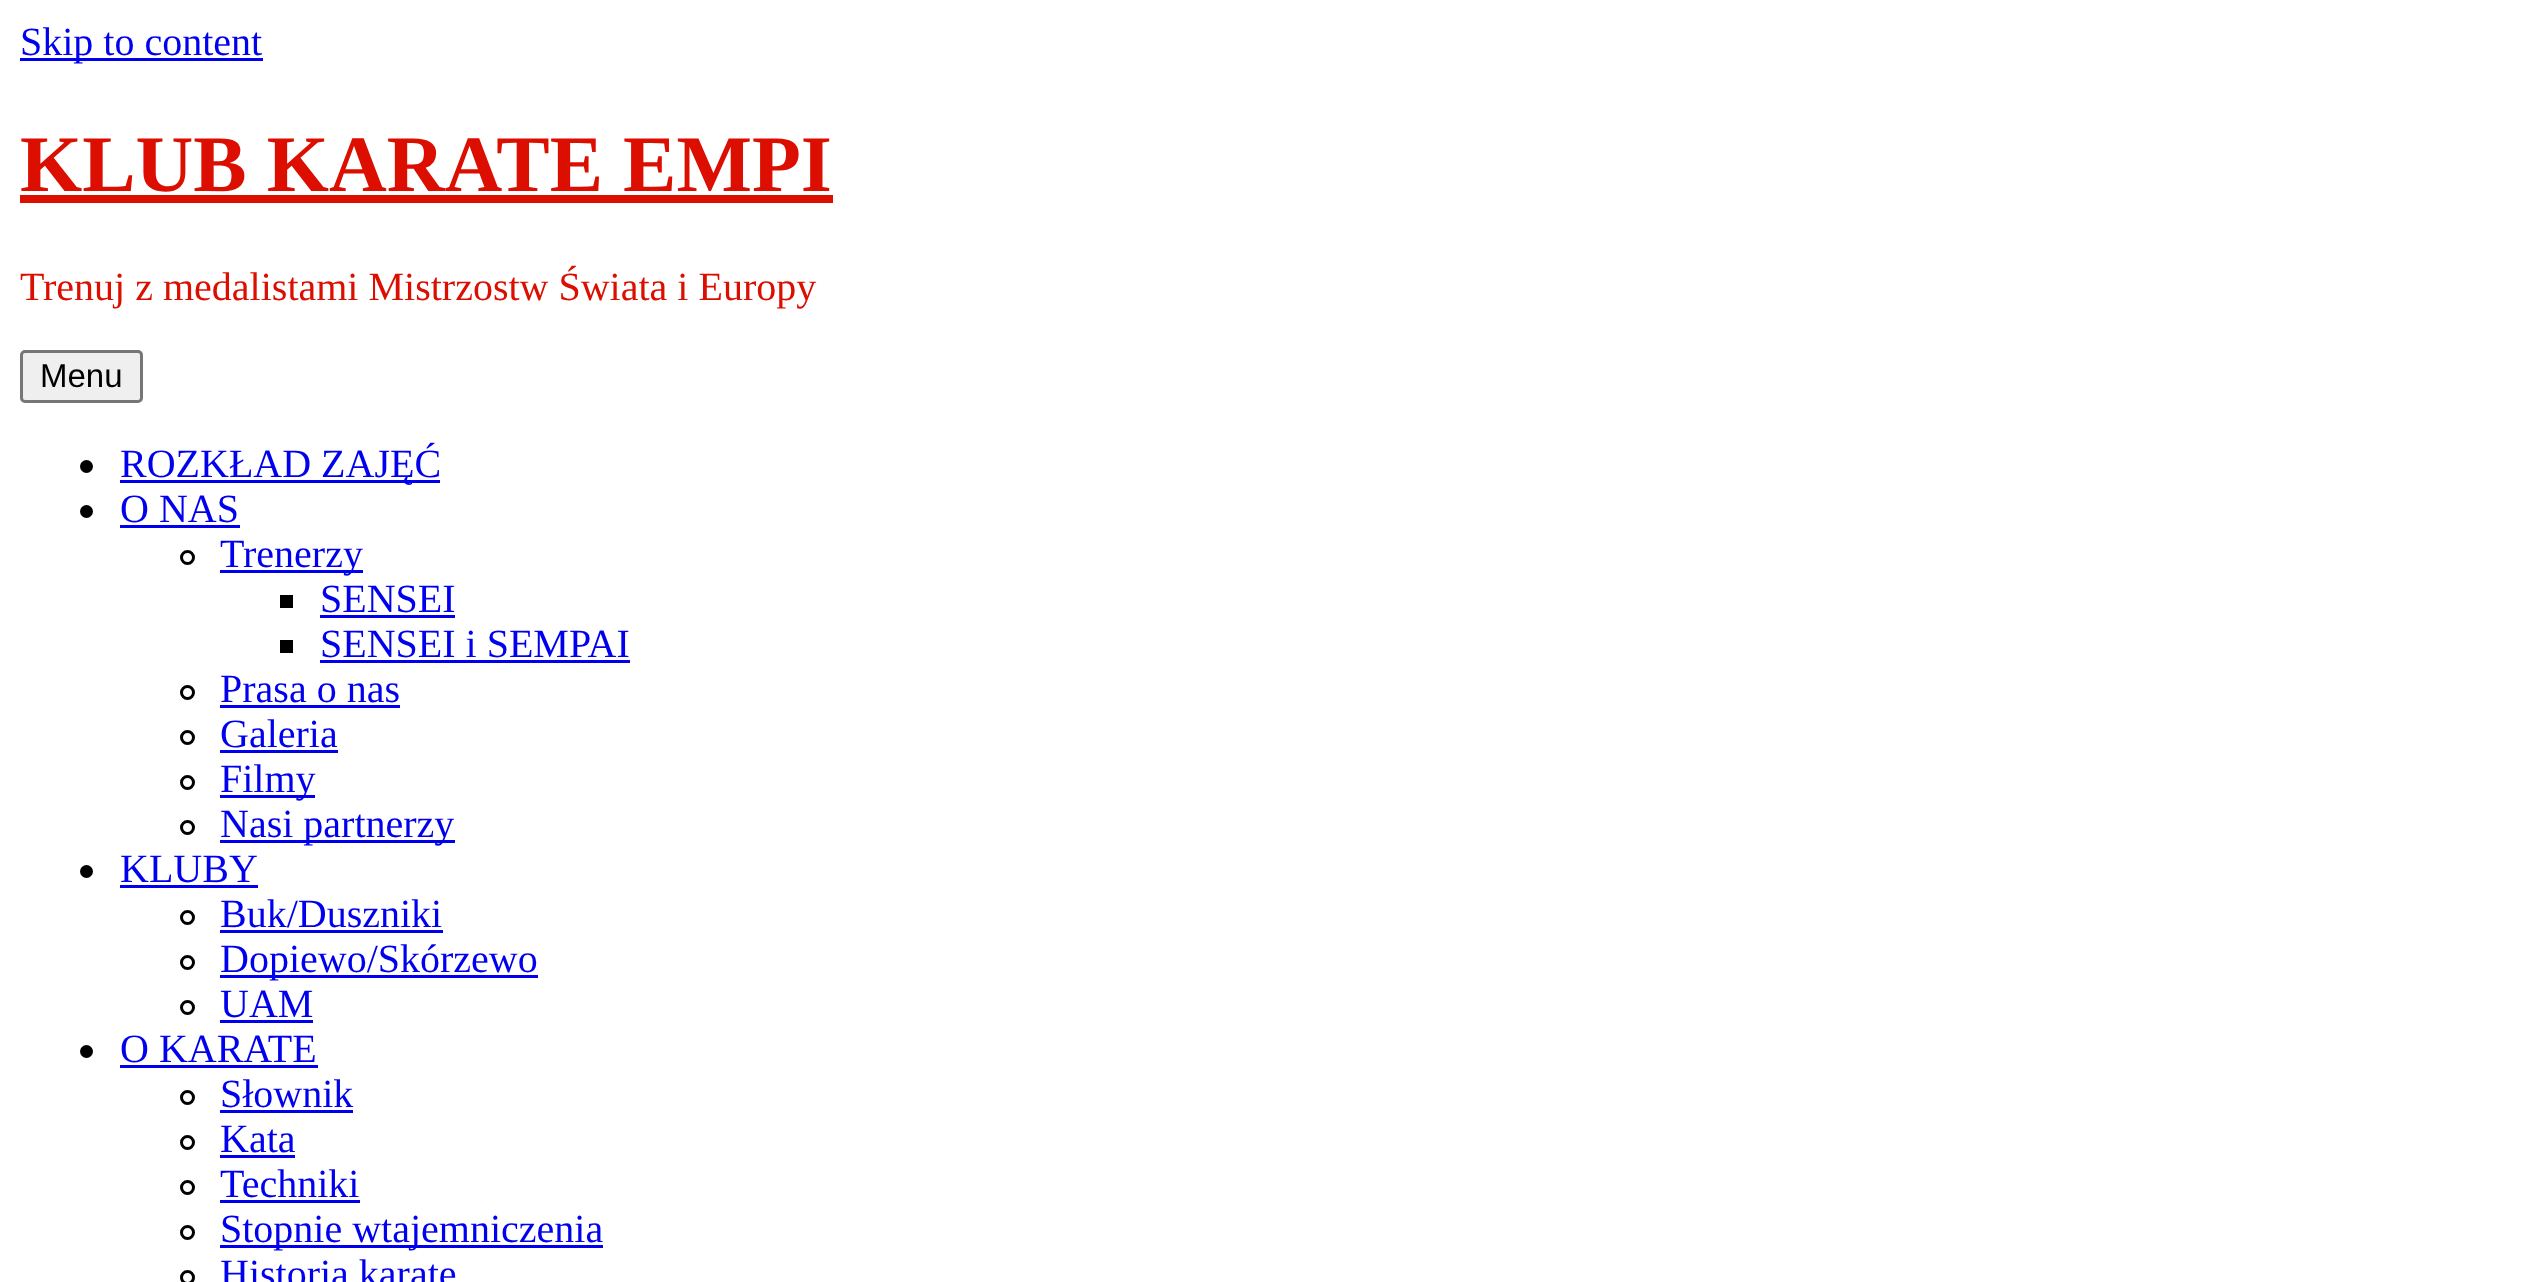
<!DOCTYPE html>
<meta charset="utf-8">
<style>body { margin: 0 } canvas { display: block }</style>
<canvas id="canvas" width="2545" height="1282"></canvas>
<script type="module">
  const canvas = document.getElementById("canvas");
  const g = canvas.getContext("2d");
  g.miterLimit = 4;
  g.fontKerning = "normal";
  function drawText(s, x, y, [font, color]) {
    g.font = font;
    g.fillStyle = color;
    g.fillText(s, x, y);
  }
  function fillBox(x, y, w, h, color) {
    g.fillStyle = color;
    g.fillRect(x, y, w, h);
  }

  const s1 = ["40px Liberation Serif", "#0000EE"];
  const s2 = ["bold 80px Liberation Serif", "#DB0E00"];
  const s3 = ["40px Liberation Serif", "#DB0E00"];
  const s4 = ["33px Liberation Sans", "#000000"];

  fillBox(0, 0, 2545, 1282, "#FFFFFF");
  fillBox(20, 58, 243, 3, "#0000EE");
  drawText("Skip to content", 20, 55, s1);
  drawText("KLUB KARATE EMPI", 20, 191, s2);
  fillBox(20, 195, 813, 8, "#DB0E00");
  drawText("Trenuj z medalistami Mistrzostw Świata i Europy", 20, 300, s3);
  g.fillStyle = "#EFEFEF";
  g.beginPath();
  g.roundRect(21.5, 351.5, 120, 50, 3.5);
  g.fill();
  g.strokeStyle = "#767676";
  g.lineWidth = 3;
  g.stroke();
  drawText("Menu", 40, 387, s4);
  g.beginPath();
  g.arc(86.5, 466.5, 6.5, 0, Math.PI * 2);
  g.fill();
  fillBox(120, 480, 320, 3, "#0000EE");
  drawText("ROZKŁAD ZAJĘĆ", 120, 477, s1);
  g.fillStyle = "#000000";
  g.beginPath();
  g.arc(86.5, 511.5, 6.5, 0, Math.PI * 2);
  g.fill();
  drawText("O NAS", 120, 522, s1);
  fillBox(120, 525, 120, 3, "#0000EE");
  g.beginPath();
  g.arc(187.5, 557.5, 6, 0, Math.PI * 2);
  g.strokeStyle = "#000000";
  g.stroke();
  fillBox(220, 570, 143, 3, "#0000EE");
  drawText("Trenerzy", 220, 567, s1);
  fillBox(280, 595, 13, 13, "#000000");
  drawText("SENSEI", 320, 612, s1);
  fillBox(320, 615, 135, 3, "#0000EE");
  fillBox(280, 640, 13, 13, "#000000");
  drawText("SENSEI i SEMPAI", 320, 657, s1);
  fillBox(320, 660, 310, 3, "#0000EE");
  g.beginPath();
  g.arc(187.5, 692.5, 6, 0, Math.PI * 2);
  g.stroke();
  drawText("Prasa o nas", 220, 702, s1);
  fillBox(220, 705, 180, 3, "#0000EE");
  g.beginPath();
  g.arc(187.5, 737.5, 6, 0, Math.PI * 2);
  g.stroke();
  drawText("Galeria", 220, 747, s1);
  fillBox(220, 750, 118, 3, "#0000EE");
  g.beginPath();
  g.arc(187.5, 782.5, 6, 0, Math.PI * 2);
  g.stroke();
  fillBox(220, 795, 95, 3, "#0000EE");
  drawText("Filmy", 220, 792, s1);
  g.beginPath();
  g.arc(187.5, 827.5, 6, 0, Math.PI * 2);
  g.stroke();
  fillBox(220, 840, 235, 3, "#0000EE");
  drawText("Nasi partnerzy", 220, 837, s1);
  g.fillStyle = "#000000";
  g.beginPath();
  g.arc(86.5, 871.5, 6.5, 0, Math.PI * 2);
  g.fill();
  drawText("KLUBY", 120, 882, s1);
  fillBox(120, 885, 138, 3, "#0000EE");
  g.beginPath();
  g.arc(187.5, 917.5, 6, 0, Math.PI * 2);
  g.stroke();
  drawText("Buk/Duszniki", 220, 927, s1);
  fillBox(220, 930, 223, 3, "#0000EE");
  g.beginPath();
  g.arc(187.5, 962.5, 6, 0, Math.PI * 2);
  g.stroke();
  fillBox(220, 975, 318, 3, "#0000EE");
  drawText("Dopiewo/Skórzewo", 220, 972, s1);
  g.beginPath();
  g.arc(187.5, 1007.5, 6, 0, Math.PI * 2);
  g.stroke();
  drawText("UAM", 220, 1017, s1);
  fillBox(220, 1020, 93, 3, "#0000EE");
  g.fillStyle = "#000000";
  g.beginPath();
  g.arc(86.5, 1051.5, 6.5, 0, Math.PI * 2);
  g.fill();
  drawText("O KARATE", 120, 1062, s1);
  fillBox(120, 1065, 198, 3, "#0000EE");
  g.beginPath();
  g.arc(187.5, 1097.5, 6, 0, Math.PI * 2);
  g.stroke();
  drawText("Słownik", 220, 1107, s1);
  fillBox(220, 1110, 133, 3, "#0000EE");
  g.beginPath();
  g.arc(187.5, 1142.5, 6, 0, Math.PI * 2);
  g.stroke();
  drawText("Kata", 220, 1152, s1);
  fillBox(220, 1155, 75, 3, "#0000EE");
  g.beginPath();
  g.arc(187.5, 1187.5, 6, 0, Math.PI * 2);
  g.stroke();
  drawText("Techniki", 220, 1197, s1);
  fillBox(220, 1200, 140, 3, "#0000EE");
  g.beginPath();
  g.arc(187.5, 1232.5, 6, 0, Math.PI * 2);
  g.stroke();
  fillBox(220, 1245, 383, 3, "#0000EE");
  drawText("Stopnie wtajemniczenia", 220, 1242, s1);
  g.beginPath();
  g.arc(187.5, 1277.5, 6, 0, Math.PI * 2);
  g.stroke();
  drawText("Historia karate", 220, 1287, s1);
</script>
